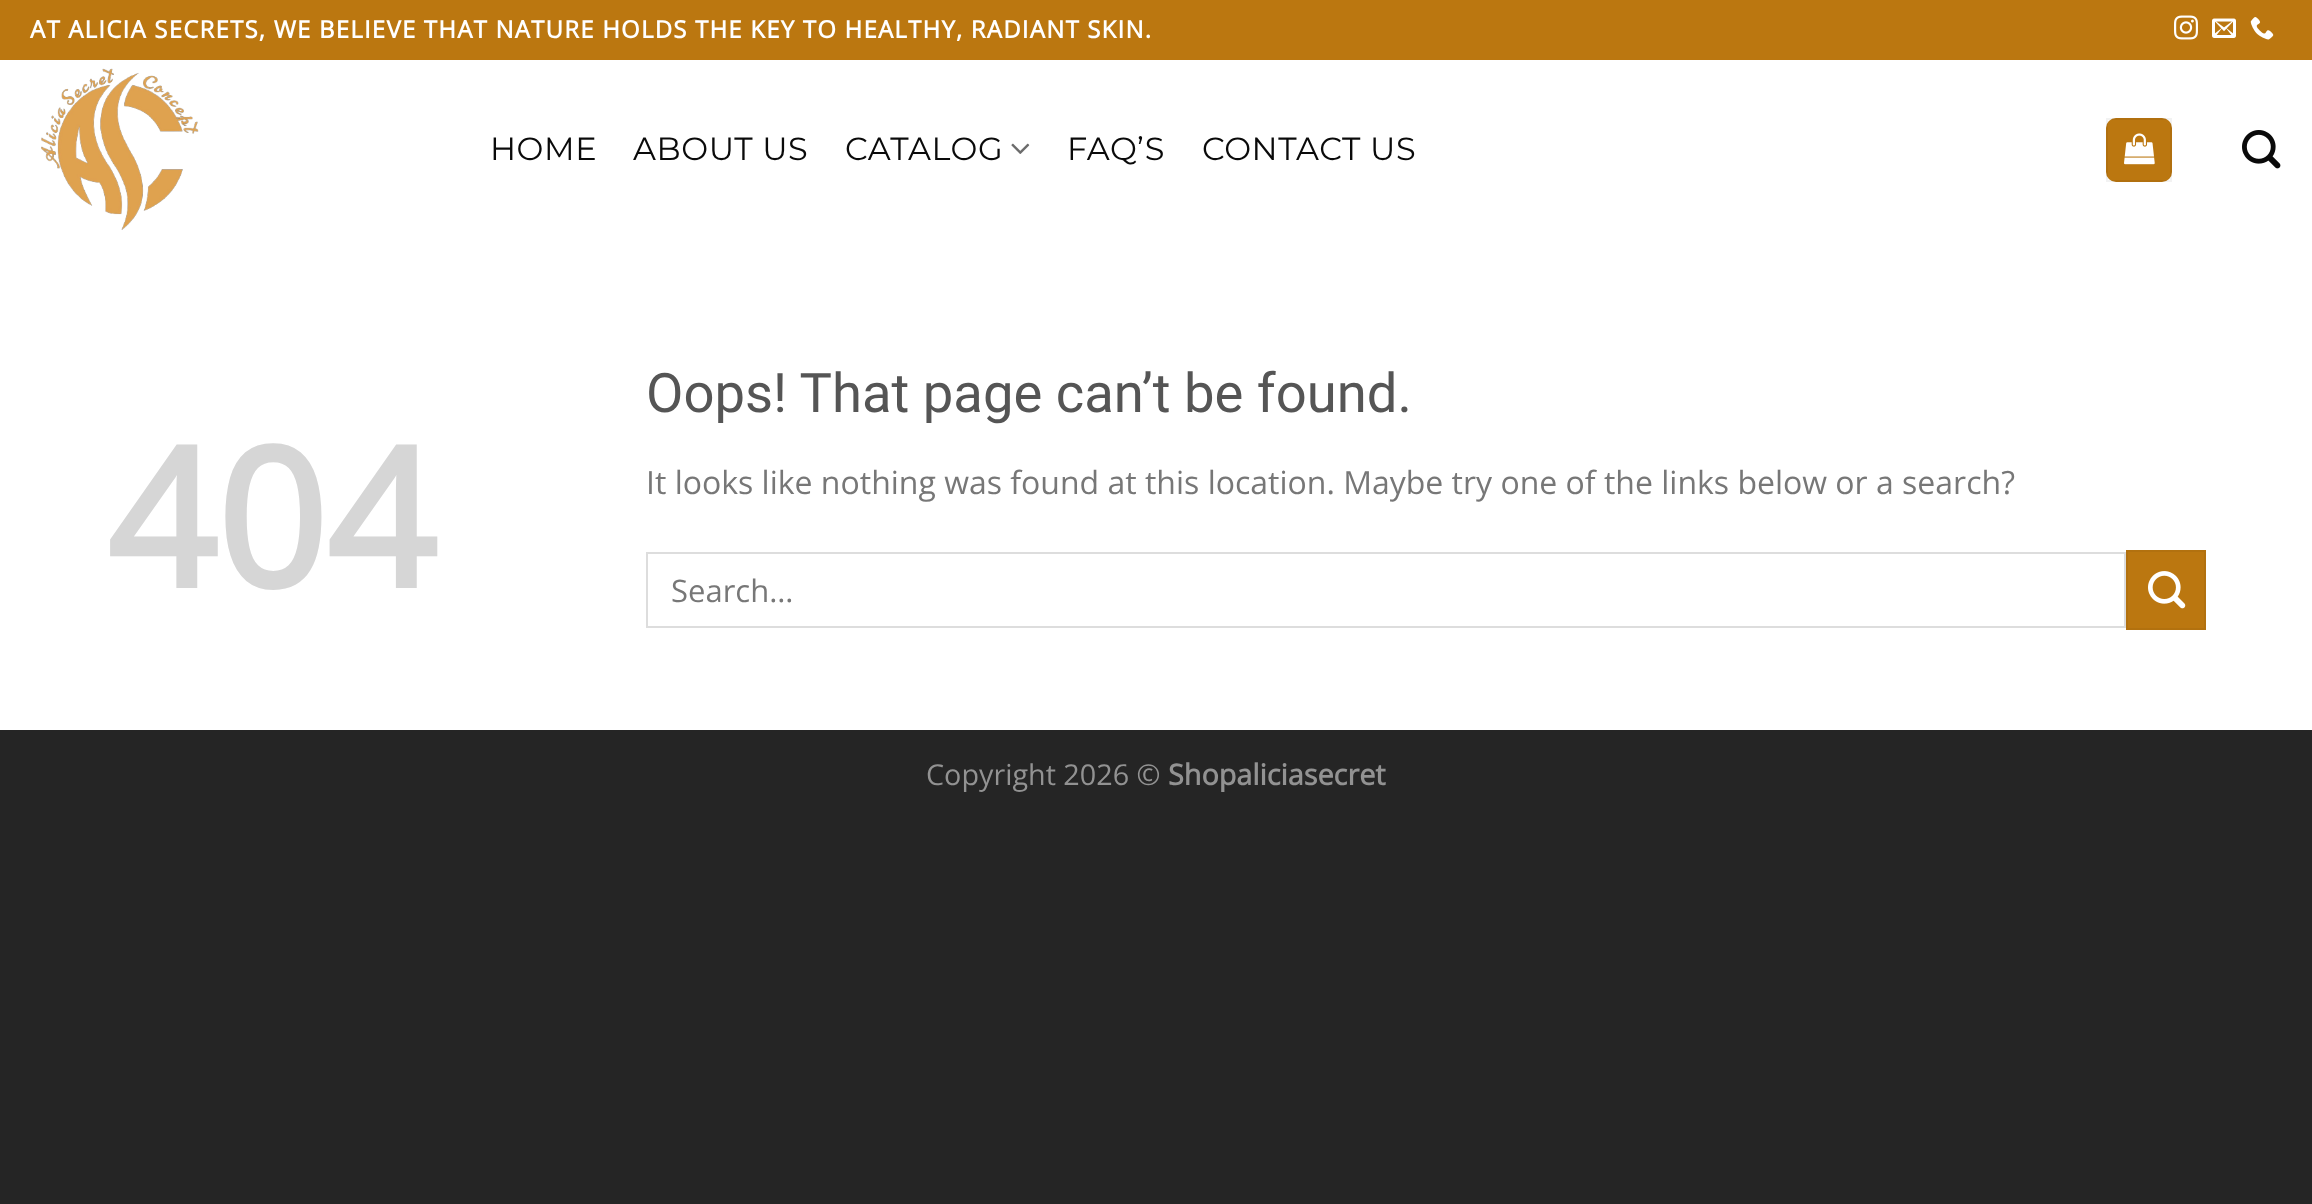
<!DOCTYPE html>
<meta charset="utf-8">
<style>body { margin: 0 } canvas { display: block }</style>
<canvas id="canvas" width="2312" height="1204"></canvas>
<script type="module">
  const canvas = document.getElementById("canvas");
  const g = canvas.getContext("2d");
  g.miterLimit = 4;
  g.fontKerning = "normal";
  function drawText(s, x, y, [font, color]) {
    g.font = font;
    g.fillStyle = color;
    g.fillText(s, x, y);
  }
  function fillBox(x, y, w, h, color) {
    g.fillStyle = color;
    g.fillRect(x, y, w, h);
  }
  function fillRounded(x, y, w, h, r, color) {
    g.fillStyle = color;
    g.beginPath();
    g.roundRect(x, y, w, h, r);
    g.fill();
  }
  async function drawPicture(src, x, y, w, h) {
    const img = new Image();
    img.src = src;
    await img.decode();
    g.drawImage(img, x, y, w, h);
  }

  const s1 = ["bold 24px Open Sans", "#FFFFFF"];
  const s2 = ["32px Montserrat", "#0A0A0A"];
  const s3 = ["bold 192px Open Sans", "#D6D6D6"];
  const s4 = ["54.4px Roboto", "#555555"];
  const s5 = ["32px Open Sans", "#777777"];
  const s6 = ["31px Open Sans", "#777777"];
  const s7 = ["28.75px Open Sans", "#929292"];
  const s8 = ["bold 28.75px Open Sans", "#929292"];

  fillBox(0, 0, 2312, 1204, "#252525");
  fillBox(0, 60, 2312, 670, "#FFFFFF");
  fillBox(0, 0, 2312, 60, "#BB7710");
  g.letterSpacing = "1.2px";
  drawText("AT ALICIA SECRETS, WE BELIEVE THAT NATURE HOLDS THE KEY TO HEALTHY, RADIANT SKIN.", 30, 38, s1);
  await drawPicture("pic1.png", 2174, 15, 24, 25);
  await drawPicture("pic2.png", 2212, 18, 24, 20);
  await drawPicture("pic3.png", 2250, 17, 24, 23);
  await drawPicture("pic4.png", 41, 68, 158, 162);
  g.letterSpacing = "0.6px";
  drawText("HOME", 490, 160, s2);
  drawText("ABOUT US", 633, 160, s2);
  drawText("CATALOG", 845, 160, s2);
  await drawPicture("pic5.png", 1011, 143, 19, 11);
  drawText("FAQ’S", 1067, 160, s2);
  drawText("CONTACT US", 1202, 160, s2);
  fillRounded(2106, 118, 66, 64, 10, "#BB7710");
  g.strokeStyle = "rgba(0, 0, 0, 0.05)";
  g.lineWidth = 2;
  g.strokeRect(2107, 119, 64, 62);
  await drawPicture("pic6.png", 2124, 133, 31, 32);
  await drawPicture("pic7.png", 2242, 130, 39, 39);
  g.letterSpacing = "0px";
  drawText("404", 106, 588, s3);
  drawText("Oops! That page can’t be found.", 646, 412, s4);
  drawText("It looks like nothing was found at this location. Maybe try one of the links below or a search?", 646, 494, s5);
  g.strokeStyle = "#DDDDDD";
  g.strokeRect(647, 553, 1478, 74);
  drawText("Search…", 671, 602, s6);
  g.fillStyle = "#BB7710";
  g.beginPath();
  g.rect(2127, 551, 78, 78);
  g.fill();
  g.strokeStyle = "#B2710F";
  g.stroke();
  await drawPicture("pic8.png", 2148, 571, 38, 38);
  drawText("Copyright 2026 ©", 926, 785, s7);
  drawText("Shopaliciasecret", 1168, 785, s8);
</script>
